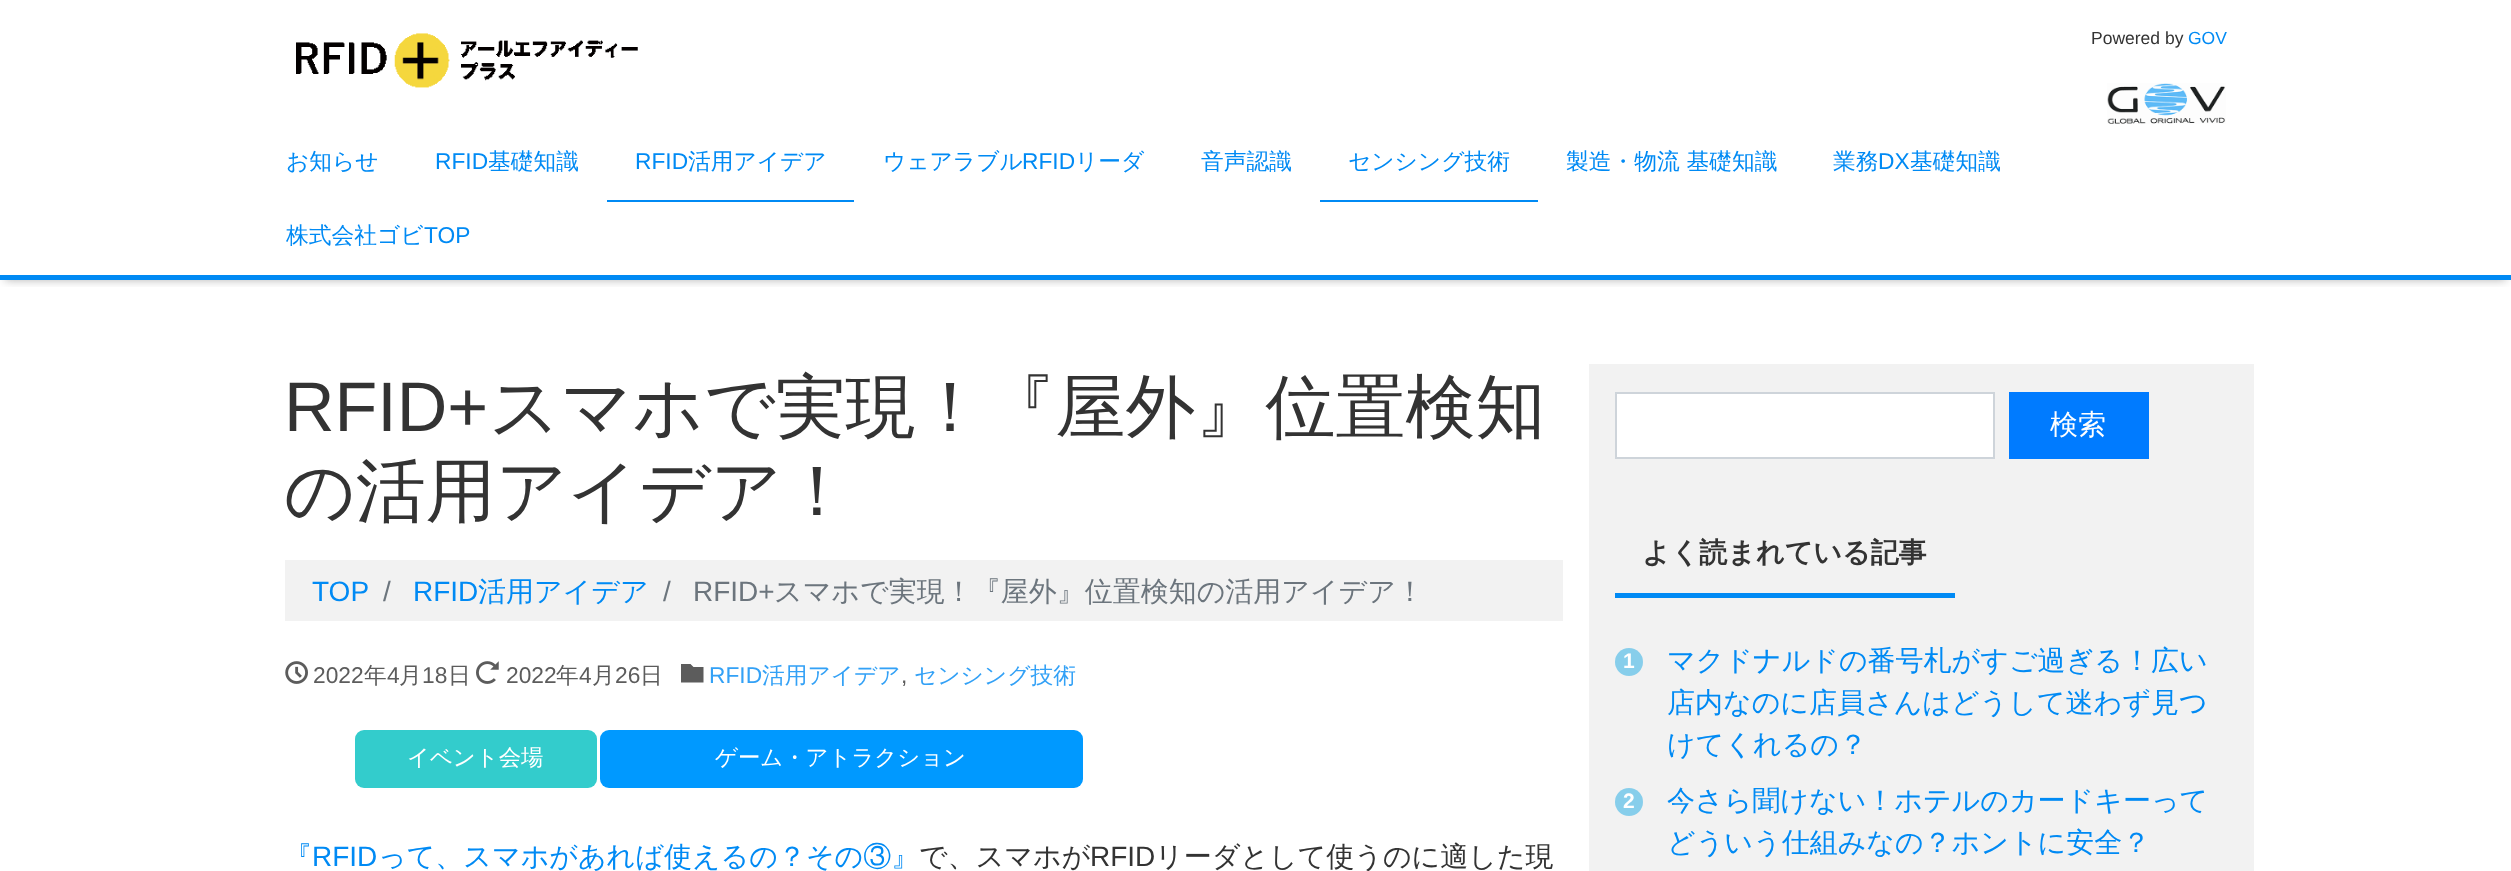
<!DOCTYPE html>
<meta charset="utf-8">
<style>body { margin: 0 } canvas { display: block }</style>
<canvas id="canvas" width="2511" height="871"></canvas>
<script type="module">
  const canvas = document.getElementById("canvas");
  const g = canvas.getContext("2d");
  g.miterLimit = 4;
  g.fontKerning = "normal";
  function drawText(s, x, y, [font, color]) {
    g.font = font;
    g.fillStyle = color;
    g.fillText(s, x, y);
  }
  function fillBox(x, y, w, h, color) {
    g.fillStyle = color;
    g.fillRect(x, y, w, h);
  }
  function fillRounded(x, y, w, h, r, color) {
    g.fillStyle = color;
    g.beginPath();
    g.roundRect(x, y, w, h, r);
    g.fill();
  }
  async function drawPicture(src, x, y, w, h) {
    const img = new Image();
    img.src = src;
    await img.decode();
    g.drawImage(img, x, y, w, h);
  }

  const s1 = ["17.5px Liberation Sans", "#333333"];
  const s2 = ["17.5px Liberation Sans", "#008AF4"];
  const s3 = ["500 22.75px WenQuanYi Zen Hei", "#008AF4"];
  const s4 = ["22.75px Liberation Sans", "#008AF4"];
  const s5 = ["70px Liberation Sans", "#333333"];
  const s6 = ["500 70px WenQuanYi Zen Hei", "#333333"];
  const s7 = ["28px Liberation Sans", "#008AF4"];
  const s8 = ["28px Liberation Sans", "#6C757D"];
  const s9 = ["500 28px WenQuanYi Zen Hei", "#008AF4"];
  const s10 = ["500 28px WenQuanYi Zen Hei", "#6C757D"];
  const s11 = ["22.75px Liberation Sans", "#5C5C5C"];
  const s12 = ["500 22.75px WenQuanYi Zen Hei", "#5C5C5C"];
  const s13 = ["22.75px Liberation Sans", "#33A1F6"];
  const s14 = ["500 22.75px WenQuanYi Zen Hei", "#33A1F6"];
  const s15 = ["500 22.4px WenQuanYi Zen Hei", "#FFFFFF"];
  const s16 = ["500 28px WenQuanYi Zen Hei", "#333333"];
  const s17 = ["28px Liberation Sans", "#333333"];
  const s18 = ["500 28px WenQuanYi Zen Hei", "#FFFFFF"];
  const s19 = ["bold 28px WenQuanYi Zen Hei", "#333333"];
  const s20 = ["bold 21px Liberation Sans", "#FFFFFF"];

  fillBox(0, 0, 2511, 871, "#FFFFFF");
  await drawPicture("pic1.png", 296, 33, 342, 55);
  drawText("Powered by", 2091, 44, s1);
  drawText("GOV", 2188, 44, s2);
  await drawPicture("pic2.png", 2107, 83, 119, 41);
  g.save();
  g.beginPath();
  g.rect(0, 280, 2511, 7);
  g.clip();
  g.fillStyle = "rgba(0, 0, 0, 0.3)";
  g.filter = "blur(5px)";
  g.beginPath();
  g.rect(5, 137, 2501, 143);
  g.fill();
  g.filter = "none";
  g.restore();
  fillBox(0, 275, 2511, 5, "#008AF4");
  drawText("お知らせ", 286, 169, s3);
  drawText("RFID", 435, 169, s4);
  drawText("基礎知識", 488, 169, s3);
  fillBox(607, 200, 247, 2, "#008AF4");
  drawText("RFID", 635, 169, s4);
  drawText("活用アイデア", 688, 169, s3);
  drawText("ウェアラブル", 883, 169, s3);
  drawText("RFID", 1022, 169, s4);
  drawText("リーダ", 1075, 169, s3);
  drawText("音声認識", 1201, 169, s3);
  fillBox(1320, 200, 218, 2, "#008AF4");
  drawText("センシング技術", 1348, 169, s3);
  drawText("製造・物流 基礎知識", 1566, 169, s3);
  drawText("業務", 1833, 169, s3);
  drawText("DX", 1878, 169, s4);
  drawText("基礎知識", 1910, 169, s3);
  drawText("株式会社ゴビ", 286, 243, s3);
  drawText("TOP", 424, 243, s4);
  drawText("RFID+", 284, 431, s5);
  drawText("スマホで実現！『屋外』位置検知", 489, 431, s6);
  drawText("の活用アイデア！", 284, 515, s6);
  fillBox(285, 560, 1278, 61, "#F2F2F2");
  drawText("TOP", 312, 601, s7);
  drawText("/", 383, 601, s8);
  drawText("RFID", 413, 601, s7);
  drawText("活用アイデア", 478, 601, s9);
  drawText("/", 663, 601, s8);
  drawText("RFID+", 693, 601, s8);
  drawText("スマホで実現！『屋外』位置検知の活用アイデア！", 774, 601, s10);
  await drawPicture("pic3.png", 285, 661, 23, 23);
  drawText("2022", 313, 683, s11);
  drawText("年", 364, 683, s12);
  drawText("4", 387, 683, s11);
  drawText("月", 399, 683, s12);
  drawText("18", 422, 683, s11);
  drawText("日", 448, 683, s12);
  await drawPicture("pic4.png", 476, 661, 23, 23);
  drawText("2022", 506, 683, s11);
  drawText("年", 556, 683, s12);
  drawText("4", 579, 683, s11);
  drawText("月", 592, 683, s12);
  drawText("26", 615, 683, s11);
  drawText("日", 640, 683, s12);
  drawText("RFID", 709, 683, s13);
  g.fillStyle = "#5C5C5C";
  g.beginPath();
  g.moveTo(690.5, 664);
  g.lineTo(693.5, 667);
  g.lineTo(703.5, 667);
  g.lineTo(703.5, 682.5);
  g.lineTo(681, 682.5);
  g.lineTo(681, 664);
  g.closePath();
  g.fill();
  drawText("活用アイデア", 762, 683, s14);
  drawText(",", 901, 683, s11);
  drawText("センシング技術", 914, 683, s14);
  fillRounded(355, 730, 242, 58, 9, "#33CCCC");
  drawText("イベント会場", 407, 765, s15);
  fillRounded(600, 730, 483, 58, 9, "#0099FF");
  drawText("ゲーム・アトラクション", 715, 765, s15);
  drawText("『", 284, 866, s9);
  drawText("RFID", 312, 866, s7);
  drawText("って、スマホがあれば使えるの？その③』", 378, 866, s9);
  drawText("で、スマホが", 919, 866, s16);
  drawText("RFID", 1090, 866, s17);
  drawText("リーダとして使うのに適した現", 1155, 866, s16);
  fillBox(1589, 364, 665, 507, "#F2F2F2");
  g.fillStyle = "#FFFFFF";
  g.beginPath();
  g.rect(1616, 393, 378, 65);
  g.fill();
  g.strokeStyle = "#CED4DA";
  g.lineWidth = 2;
  g.stroke();
  fillBox(2009, 392, 140, 67, "#007BFF");
  drawText("検索", 2050, 434, s18);
  fillBox(1615, 593, 340, 5, "#008AF4");
  drawText("よく読まれている記事", 1642, 562, s19);
  g.fillStyle = "#87CEEB";
  g.beginPath();
  g.arc(1629, 662, 14, 0, Math.PI * 2);
  g.fill();
  drawText("1", 1623, 668, s20);
  drawText("マクドナルドの番号札がすご過ぎる！広い", 1667, 670, s9);
  drawText("店内なのに店員さんはどうして迷わず見つ", 1667, 712, s9);
  drawText("けてくれるの？", 1667, 754, s9);
  g.fillStyle = "#87CEEB";
  g.beginPath();
  g.arc(1629, 802, 14, 0, Math.PI * 2);
  g.fill();
  drawText("2", 1623, 808, s20);
  drawText("今さら聞けない！ホテルのカードキーって", 1667, 810, s9);
  drawText("どういう仕組みなの？ホントに安全？", 1667, 852, s9);
</script>
